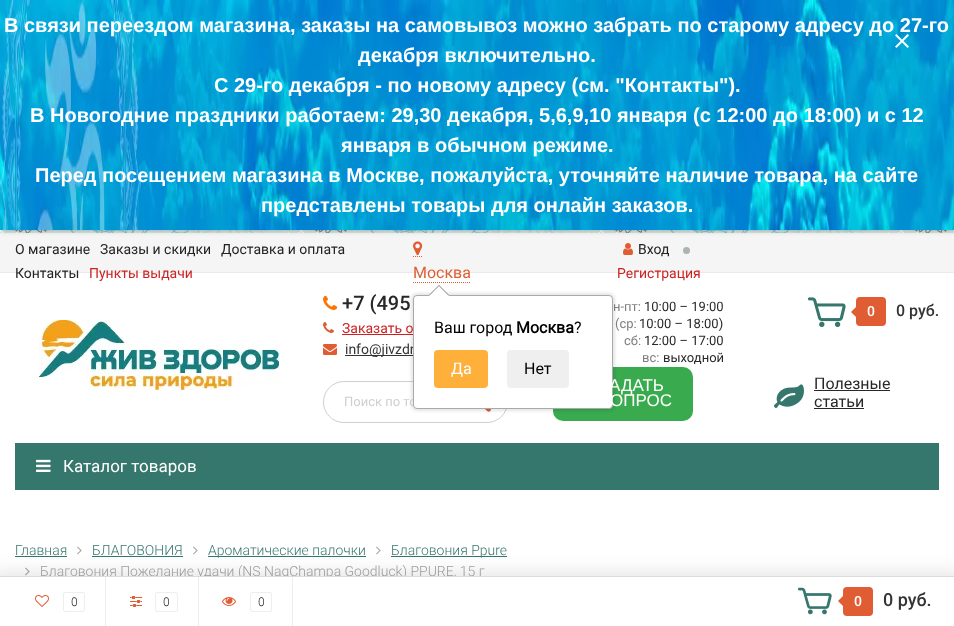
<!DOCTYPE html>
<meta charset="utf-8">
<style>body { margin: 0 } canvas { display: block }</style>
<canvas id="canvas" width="954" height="626"></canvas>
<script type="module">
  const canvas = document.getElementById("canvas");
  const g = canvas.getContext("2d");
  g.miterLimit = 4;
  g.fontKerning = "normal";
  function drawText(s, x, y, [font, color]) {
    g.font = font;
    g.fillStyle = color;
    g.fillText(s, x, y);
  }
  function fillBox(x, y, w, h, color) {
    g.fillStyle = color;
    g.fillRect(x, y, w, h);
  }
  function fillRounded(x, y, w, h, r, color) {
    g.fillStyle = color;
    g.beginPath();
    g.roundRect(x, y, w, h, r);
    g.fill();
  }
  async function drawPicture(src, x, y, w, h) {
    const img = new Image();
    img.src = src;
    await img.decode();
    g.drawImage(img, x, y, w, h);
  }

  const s1 = ["bold 20px Liberation Sans", "#FFFFFF"];
  const s2 = ["14px Roboto", "#222222"];
  const s3 = ["14px Roboto", "#CC2222"];
  const s4 = ["16px Roboto", "#E05D33"];
  const s5 = ["14px Roboto", "#343434"];
  const s6 = ["13px Roboto", "#CFCFCF"];
  const s7 = ["16px Roboto", "#000000"];
  const s8 = ["bold 16px Roboto", "#000000"];
  const s9 = ["16px Roboto", "#FFFFFF"];
  const s10 = ["500 20px Roboto", "#282828"];
  const s11 = ["13px Roboto", "#7F7F7F"];
  const s12 = ["13px Roboto", "#282828"];
  const s13 = ["500 14px Roboto", "#FFFFFF"];
  const s14 = ["500 16px Roboto", "#343434"];
  const s15 = ["17px Liberation Sans", "#FFFFFF"];
  const s16 = ["16px Roboto", "#282828"];
  const s17 = ["17px Roboto", "#FFFFFF"];
  const s18 = ["300 14px Roboto", "#35776C"];
  const s19 = ["300 14px Roboto", "#A3A3A3"];
  const s20 = ["300 12px Roboto", "#222222"];
  const s21 = ["500 18px Roboto", "#343434"];

  fillBox(0, 0, 954, 626, "#FFFFFF");
  await drawPicture("pic1.png", 0, 230, 954, 3);
  fillBox(0, 233, 954, 39, "#F5F5F5");
  g.fillStyle = "rgba(0, 0, 0, 0.25)";
  g.filter = "blur(2.5px)";
  g.beginPath();
  g.rect(1, 1, 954, 230);
  g.fill();
  g.filter = "none";
  await drawPicture("pic2.png", 0, 0, 954, 230);
  drawText("В связи переездом магазина, заказы на самовывоз можно забрать по старому адресу до 27-го", 4, 32, s1);
  drawText("декабря включительно.", 358, 62, s1);
  drawText("С 29-го декабря - по новому адресу (см. \"Контакты\").", 214, 92, s1);
  drawText("В Новогодние праздники работаем: 29,30 декабря, 5,6,9,10 января (с 12:00 до 18:00) и с 12", 30, 122, s1);
  drawText("января в обычном режиме.", 341, 152, s1);
  drawText("Перед посещением магазина в Москве, пожалуйста, уточняйте наличие товара, на сайте", 35, 182, s1);
  drawText("представлены товары для онлайн заказов.", 261, 212, s1);
  await drawPicture("pic3.png", 895, 34, 14, 14);
  fillBox(0, 272, 954, 1, "#EAEAEA");
  drawText("O магазине", 15, 254, s2);
  drawText("Заказы и скидки", 100, 254, s2);
  drawText("Доставка и оплата", 221, 254, s2);
  drawText("Контакты", 15, 278, s2);
  drawText("Пункты выдачи", 89, 278, s3);
  g.beginPath();
  g.moveTo(413, 256.5);
  g.lineTo(422, 256.5);
  g.moveTo(413, 282.5);
  g.lineTo(470, 282.5);
  g.strokeStyle = "#E05D33";
  g.setLineDash([1, 1]);
  g.stroke();
  await drawPicture("pic4.png", 413, 241, 10, 15);
  drawText("Москва", 413, 278, s4);
  fillBox(342, 334, 71, 1, "#CC2222");
  fillBox(345, 355, 68, 1, "#343434");
  g.beginPath();
  g.roundRect(323.5, 381.5, 184, 41, 20.5);
  g.strokeStyle = "#D0CFCF";
  g.setLineDash([]);
  g.stroke();
  await drawPicture("pic11.png", 485, 409, 6, 3);
  fillRounded(553, 367, 140, 54, 10, "#39AB4E");
  g.fillStyle = "rgba(0, 0, 0, 0.1)";
  g.filter = "blur(1.5px)";
  g.beginPath();
  g.roundRect(411, 293, 204, 118, 6);
  g.fill();
  g.filter = "none";
  drawText("Заказать о", 342, 333, s3);
  drawText("info@jivzdr", 345, 354, s5);
  drawText("Поиск по то", 344, 406, s6);
  g.fillStyle = "#FFFFFF";
  g.beginPath();
  g.roundRect(413.5, 295.5, 199, 113, 3.5);
  g.fill();
  g.strokeStyle = "#AAAAAA";
  g.stroke();
  g.fillStyle = "#808080";
  g.beginPath();
  g.moveTo(449, 295);
  g.lineTo(429, 295);
  g.lineTo(439, 285);
  g.closePath();
  g.fill();
  g.fillStyle = "#FFFFFF";
  g.beginPath();
  g.moveTo(449, 296);
  g.lineTo(429, 296);
  g.lineTo(439, 286);
  g.closePath();
  g.fill();
  drawText("Ваш город", 434, 333, s7);
  drawText("Москва", 516, 333, s8);
  drawText("?", 574, 333, s7);
  fillRounded(434, 350, 54, 38, 4, "#FFB03B");
  drawText("Да", 451, 374, s9);
  fillRounded(507, 350, 62, 38, 4, "#EFEFEF");
  drawText("Нет", 524, 374, s7);
  await drawPicture("pic5.png", 623, 243, 10, 12);
  drawText("Вход", 638, 254, s2);
  g.fillStyle = "#ACB3B4";
  g.beginPath();
  g.arc(686.5, 250.5, 3.5, 0, Math.PI * 2);
  g.fill();
  drawText("Регистрация", 617, 278, s3);
  await drawPicture("pic6.png", 39, 320, 240, 70);
  await drawPicture("pic7.png", 323, 295, 15, 15);
  drawText("+7 (495", 342, 310, s10);
  await drawPicture("pic8.png", 323, 322, 11, 11);
  await drawPicture("pic9.png", 323, 344, 14, 11);
  drawText("н-пт:", 613, 311, s11);
  drawText("10:00 – 19:00", 644, 311, s12);
  drawText("(ср:", 615, 328, s11);
  drawText("10:00 – 18:00)", 639, 328, s12);
  drawText("сб:", 624, 345, s11);
  drawText("12:00 – 17:00", 644, 345, s12);
  drawText("вс:", 642, 362, s11);
  drawText("выходной", 663, 362, s12);
  await drawPicture("pic10.png", 808, 297, 38, 31);
  g.fillStyle = "#E05D33";
  g.beginPath();
  g.roundRect(858, 299, 26, 25, 2);
  g.fill();
  g.strokeStyle = "#E05D33";
  g.lineWidth = 4;
  g.stroke();
  g.beginPath();
  g.moveTo(860, 303);
  g.lineTo(860, 321);
  g.lineTo(851, 312);
  g.closePath();
  g.fill();
  drawText("0", 867, 316, s13);
  drawText("0 руб.", 896, 316, s14);
  drawText("АДАТЬ", 609, 391, s15);
  drawText("ОПРОС", 610, 406, s15);
  await drawPicture("pic12.png", 774, 384, 30, 24);
  drawText("Полезные", 814, 389, s16);
  fillBox(814, 390, 76, 1, "#282828");
  drawText("статьи", 814, 407, s16);
  fillBox(814, 408, 50, 1, "#282828");
  fillBox(15, 443, 924, 47, "#35776C");
  await drawPicture("pic13.png", 36, 459, 15, 13);
  drawText("Каталог товаров", 63, 472, s17);
  drawText("Главная", 15, 555, s18);
  fillBox(15, 556, 52, 1, "#35776C");
  await drawPicture("pic14.png", 77, 546, 5, 9);
  drawText("БЛАГОВОНИЯ", 92, 555, s18);
  fillBox(92, 556, 91, 1, "#35776C");
  await drawPicture("pic14.png", 193, 546, 5, 9);
  fillBox(208, 556, 158, 1, "#35776C");
  drawText("Ароматические палочки", 208, 555, s18);
  await drawPicture("pic14.png", 376, 546, 5, 9);
  fillBox(391, 556, 116, 1, "#35776C");
  drawText("Благовония Ppure", 391, 555, s18);
  await drawPicture("pic14.png", 25, 567, 5, 9);
  drawText("Благовония Пожелание удачи (NS NagChampa Goodluck) PPURE, 15 г", 40, 576, s19);
  g.fillStyle = "rgba(50, 50, 50, 0.15)";
  g.filter = "blur(10px)";
  g.beginPath();
  g.rect(-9, 574, 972, 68);
  g.fill();
  g.filter = "none";
  fillBox(0, 577, 954, 49, "#FFFFFF");
  fillBox(0, 576, 954, 1, "#DBDBDB");
  fillBox(105, 577, 1, 49, "#EDEDED");
  await drawPicture("pic15.png", 35, 595, 14, 12);
  g.beginPath();
  g.roundRect(63.5, 592.5, 21, 19, 1.5);
  g.strokeStyle = "#EEEEEE";
  g.lineWidth = 1;
  g.stroke();
  drawText("0", 71, 606, s20);
  fillBox(198, 577, 1, 49, "#EDEDED");
  await drawPicture("pic16.png", 130, 596, 12, 11);
  g.beginPath();
  g.roundRect(155.5, 592.5, 22, 19, 1.5);
  g.stroke();
  drawText("0", 163, 606, s20);
  fillBox(292, 577, 1, 49, "#EDEDED");
  await drawPicture("pic17.png", 222, 597, 14, 9);
  g.beginPath();
  g.roundRect(250.5, 592.5, 21, 19, 1.5);
  g.stroke();
  drawText("0", 258, 606, s20);
  await drawPicture("pic18.png", 798, 587, 34, 28);
  g.fillStyle = "#E05D33";
  g.beginPath();
  g.roundRect(845, 589, 26, 25, 2);
  g.fill();
  g.strokeStyle = "#E05D33";
  g.lineWidth = 4;
  g.stroke();
  g.beginPath();
  g.moveTo(847, 592);
  g.lineTo(847, 610);
  g.lineTo(838, 601);
  g.closePath();
  g.fill();
  drawText("0", 854, 606, s13);
  drawText("0 руб.", 883, 606, s21);
</script>
